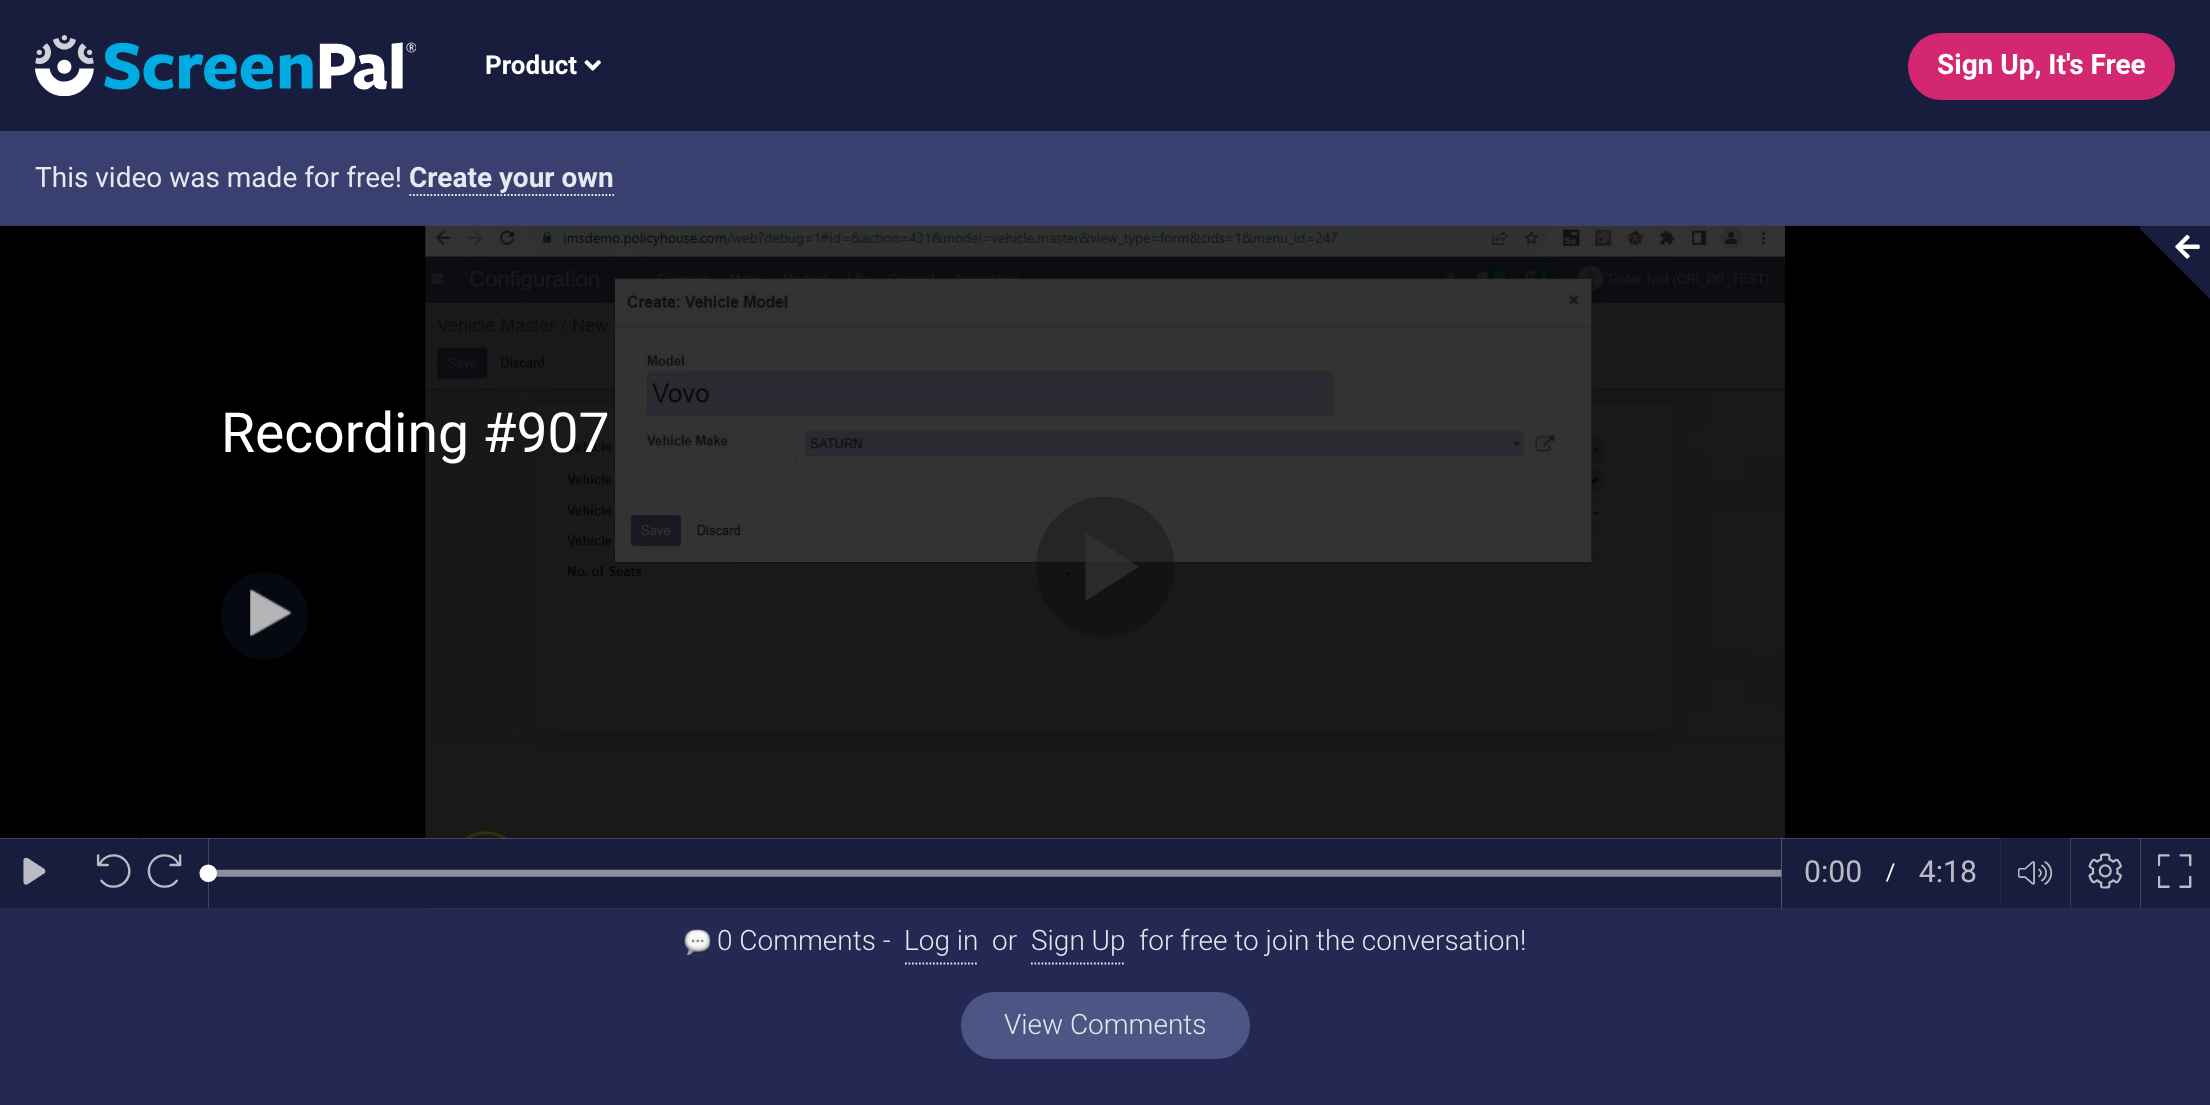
<!DOCTYPE html>
<meta charset="utf-8">
<style>body { margin: 0 } canvas { display: block }</style>
<canvas id="canvas" width="2210" height="1105"></canvas>
<script type="module">
  const canvas = document.getElementById("canvas");
  const g = canvas.getContext("2d");
  g.miterLimit = 4;
  g.fontKerning = "normal";
  function drawText(s, x, y, [font, color]) {
    g.font = font;
    g.fillStyle = color;
    g.fillText(s, x, y);
  }
  function fillBox(x, y, w, h, color) {
    g.fillStyle = color;
    g.fillRect(x, y, w, h);
  }
  async function drawPicture(src, x, y, w, h) {
    const img = new Image();
    img.src = src;
    await img.decode();
    g.drawImage(img, x, y, w, h);
  }

  const s1 = ["bold 26px Roboto", "#FFFFFF"];
  const s2 = ["bold 28px Roboto", "#FFFFFF"];
  const s3 = ["28px Roboto", "#E6E7EF"];
  const s4 = ["bold 28px Roboto", "#E6E7EF"];
  const s5 = ["300 28px Roboto", "#E6E7EF"];

  fillBox(0, 0, 2210, 1105, "#232953");
  fillBox(0, 0, 2210, 131, "#181D3D");
  await drawPicture("pic1.png", 35, 35, 382, 61);
  drawText("Product", 485, 74, s1);
  await drawPicture("pic2.png", 584, 60, 17, 11);
  g.fillStyle = "#D32771";
  g.beginPath();
  g.roundRect(1909, 34, 265, 65, 32.5);
  g.fill();
  g.strokeStyle = "#D32771";
  g.lineWidth = 2;
  g.stroke();
  drawText("Sign Up, It's Free", 1937, 74, s2);
  fillBox(0, 131, 2210, 95, "#39406F");
  drawText("This video was made for free!", 35, 187, s3);
  drawText("Create your own", 409, 187, s4);
  g.beginPath();
  g.moveTo(409.5, 195);
  g.lineTo(614, 195);
  g.strokeStyle = "#E6E7EF";
  g.lineWidth = 1.8;
  g.setLineDash([1.75, 1.75]);
  g.stroke();
  await drawPicture("pic3.png", 0, 225, 2210, 684);
  g.fillStyle = "#181D3D";
  g.beginPath();
  g.moveTo(2210, 226);
  g.lineTo(2210, 299);
  g.lineTo(2140, 229);
  g.lineTo(2140, 226);
  g.closePath();
  g.fill();
  await drawPicture("pic4.png", 2175, 234, 25, 25);
  await drawPicture("pic5.png", 684, 929, 27, 27);
  drawText("0 Comments -", 717, 950, s5);
  g.beginPath();
  g.moveTo(905, 963.5);
  g.lineTo(978, 963.5);
  g.stroke();
  drawText("Log in", 904, 950, s5);
  drawText("or", 992, 950, s5);
  g.beginPath();
  g.moveTo(1031, 963.5);
  g.lineTo(1125, 963.5);
  g.stroke();
  drawText("Sign Up", 1031, 950, s5);
  drawText("for free to join the conversation!", 1139, 950, s5);
  g.fillStyle = "#4D5584";
  g.beginPath();
  g.roundRect(962, 993, 287, 65, 32.5);
  g.fill();
  g.strokeStyle = "#4D5584";
  g.lineWidth = 2;
  g.setLineDash([]);
  g.stroke();
  drawText("View Comments", 1004, 1034, s5);
</script>
